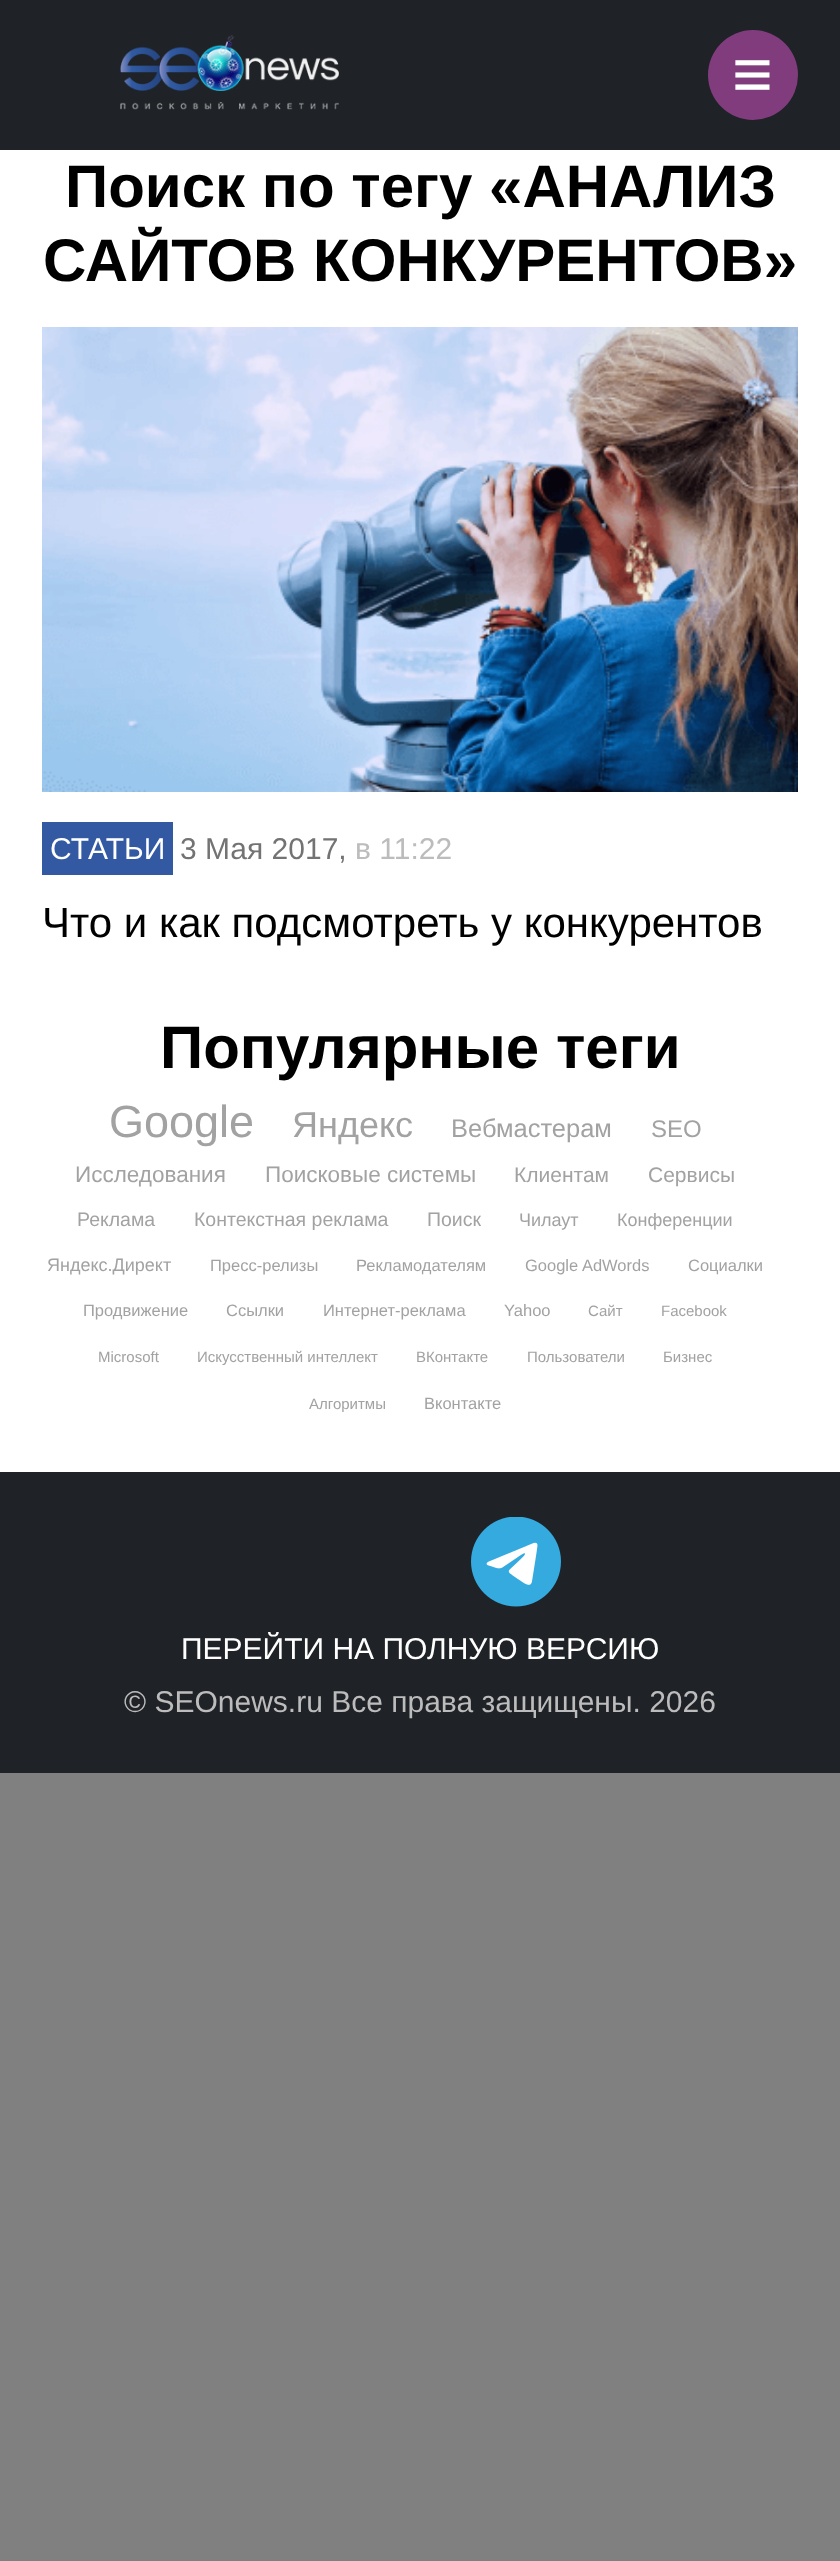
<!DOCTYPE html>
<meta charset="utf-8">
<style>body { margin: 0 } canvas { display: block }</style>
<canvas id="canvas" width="840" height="2561"></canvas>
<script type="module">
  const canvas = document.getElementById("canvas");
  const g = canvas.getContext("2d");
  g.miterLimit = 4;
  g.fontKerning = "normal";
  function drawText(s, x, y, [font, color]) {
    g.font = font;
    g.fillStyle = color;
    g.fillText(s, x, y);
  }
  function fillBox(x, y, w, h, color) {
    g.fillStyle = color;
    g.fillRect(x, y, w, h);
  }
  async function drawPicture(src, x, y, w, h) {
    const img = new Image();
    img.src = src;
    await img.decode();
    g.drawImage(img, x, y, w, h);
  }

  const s1 = ["70px Liberation Sans", "#FFFFFF"];
  const s2 = ["bold 60px Liberation Sans", "#000000"];
  const s3 = ["30px Liberation Sans", "#FFFFFF"];
  const s4 = ["30px Liberation Sans", "#737373"];
  const s5 = ["30px Liberation Sans", "#BCBCBC"];
  const s6 = ["42px Liberation Sans", "#000000"];
  const s7 = ["45px Liberation Sans", "#A2A2A2"];
  const s8 = ["36px Liberation Sans", "#A2A2A2"];
  const s9 = ["25.5px Liberation Sans", "#A2A2A2"];
  const s10 = ["24px Liberation Sans", "#A2A2A2"];
  const s11 = ["22.5px Liberation Sans", "#A2A2A2"];
  const s12 = ["21px Liberation Sans", "#A2A2A2"];
  const s13 = ["19.5px Liberation Sans", "#A2A2A2"];
  const s14 = ["18px Liberation Sans", "#A2A2A2"];
  const s15 = ["16.5px Liberation Sans", "#A2A2A2"];
  const s16 = ["15px Liberation Sans", "#A2A2A2"];

  fillBox(0, 0, 840, 2561, "#808080");
  fillBox(0, 150, 840, 1322, "#FFFFFF");
  fillBox(0, 0, 840, 150, "#1F2226");
  await drawPicture("pic1.png", 120, 35, 219, 75);
  g.fillStyle = "#813C7E";
  g.beginPath();
  g.arc(753, 75, 45, 0, Math.PI * 2);
  g.fill();
  drawText("≡", 732, 98, s1);
  drawText("Поиск по тегу «АНАЛИЗ", 65, 207, s2);
  drawText("САЙТОВ КОНКУРЕНТОВ»", 43, 281, s2);
  await drawPicture("pic2.png", 42, 327, 756, 465);
  fillBox(42, 822, 131, 53, "#3359A3");
  drawText("СТАТЬИ", 50, 859, s3);
  drawText("3 Мая 2017,", 180, 859, s4);
  drawText("в 11:22", 355, 859, s5);
  drawText("Что и как подсмотреть у конкурентов", 42, 937, s6);
  drawText("Популярные теги", 160, 1068, s2);
  drawText("Google", 109, 1137, s7);
  drawText("Яндекс", 292, 1137, s8);
  drawText("Вебмастерам", 451, 1137, s9);
  drawText("SEO", 651, 1137, s10);
  drawText("Исследования", 75, 1182, s11);
  drawText("Поисковые системы", 265, 1182, s11);
  drawText("Клиентам", 514, 1182, s12);
  drawText("Сервисы", 648, 1182, s12);
  drawText("Реклама", 77, 1226, s13);
  drawText("Контекстная реклама", 194, 1226, s13);
  drawText("Поиск", 427, 1226, s13);
  drawText("Чилаут", 519, 1226, s14);
  drawText("Конференции", 617, 1226, s14);
  drawText("Яндекс.Директ", 47, 1271, s14);
  drawText("Пресс-релизы", 210, 1271, s15);
  drawText("Рекламодателям", 356, 1271, s15);
  drawText("Google AdWords", 525, 1271, s15);
  drawText("Социалки", 688, 1271, s15);
  drawText("Продвижение", 83, 1316, s15);
  drawText("Ссылки", 226, 1316, s15);
  drawText("Интернет-реклама", 323, 1316, s15);
  drawText("Yahoo", 504, 1316, s15);
  drawText("Сайт", 588, 1316, s16);
  drawText("Facebook", 661, 1316, s16);
  drawText("Microsoft", 98, 1362, s16);
  drawText("Искусственный интеллект", 197, 1362, s16);
  drawText("ВКонтакте", 416, 1362, s16);
  drawText("Пользователи", 527, 1362, s16);
  drawText("Бизнес", 663, 1362, s16);
  drawText("Алгоритмы", 309, 1409, s16);
  drawText("Вконтакте", 424, 1409, s15);
  fillBox(0, 1472, 840, 301, "#1F2226");
  await drawPicture("pic3.png", 471, 1517, 90, 90);
  drawText("ПЕРЕЙТИ НА ПОЛНУЮ ВЕРСИЮ", 181, 1659, s3);
  drawText("© SEOnews.ru Все права защищены. 2026", 124, 1712, s5);
</script>
